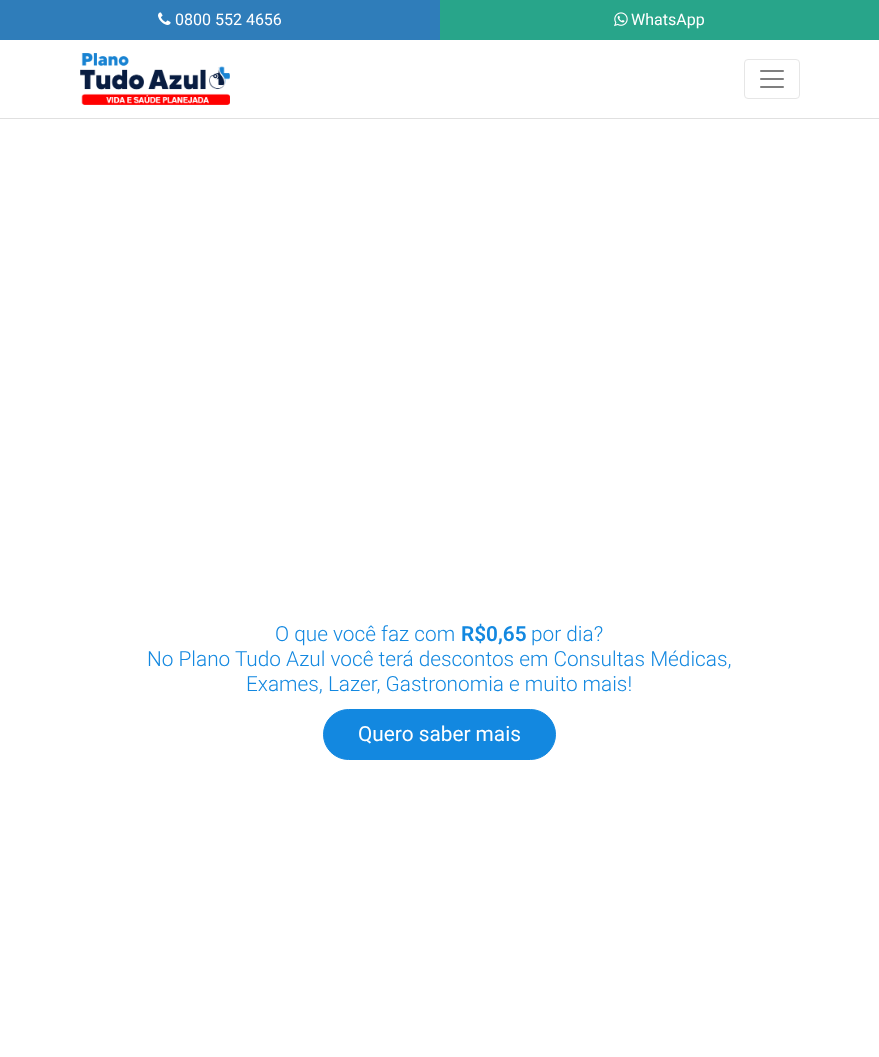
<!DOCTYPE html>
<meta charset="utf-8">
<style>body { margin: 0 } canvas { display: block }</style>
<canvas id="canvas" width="879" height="1057"></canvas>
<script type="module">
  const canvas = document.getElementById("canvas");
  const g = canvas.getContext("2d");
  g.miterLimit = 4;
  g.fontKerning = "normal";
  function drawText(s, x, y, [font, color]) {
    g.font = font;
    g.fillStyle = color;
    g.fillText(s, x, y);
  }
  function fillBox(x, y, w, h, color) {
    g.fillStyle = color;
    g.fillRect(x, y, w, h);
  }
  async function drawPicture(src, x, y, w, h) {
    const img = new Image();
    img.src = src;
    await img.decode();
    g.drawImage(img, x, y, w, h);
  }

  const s1 = ["16px Roboto", "#FFFFFF"];
  const s2 = ["300 20.8px Roboto", "#1388E0"];
  const s3 = ["600 20.8px Roboto", "#1388E0"];
  const s4 = ["20.8px Roboto", "#FFFFFF"];

  fillBox(0, 0, 879, 1057, "#FFFFFF");
  fillBox(0, 0, 440, 40, "#2F7DBA");
  await drawPicture("pic1.png", 158, 12, 13, 13);
  drawText("0800 552 4656", 175, 25, s1);
  fillBox(440, 0, 439, 40, "#28A58A");
  await drawPicture("pic2.png", 614, 12, 14, 15);
  drawText("WhatsApp", 631, 25, s1);
  fillBox(0, 118, 879, 1, "#E0E0E0");
  await drawPicture("pic3.png", 80, 53, 150, 52);
  g.beginPath();
  g.roundRect(744.5, 59.5, 55, 39, 3.5);
  g.strokeStyle = "#E6E6E6";
  g.stroke();
  await drawPicture("pic4.png", 760, 70, 24, 18);
  drawText("O que você faz com", 275, 641, s2);
  drawText("R$0,65", 461, 641, s3);
  drawText("por dia?", 531, 641, s2);
  drawText("No Plano Tudo Azul você terá descontos em Consultas Médicas,", 147, 666, s2);
  drawText("Exames, Lazer, Gastronomia e muito mais!", 246, 691, s2);
  g.beginPath();
  g.roundRect(323.5, 709.5, 232, 50, 25);
  g.fill();
  g.strokeStyle = "#1388E0";
  g.stroke();
  drawText("Quero saber mais", 358, 741, s4);
</script>
